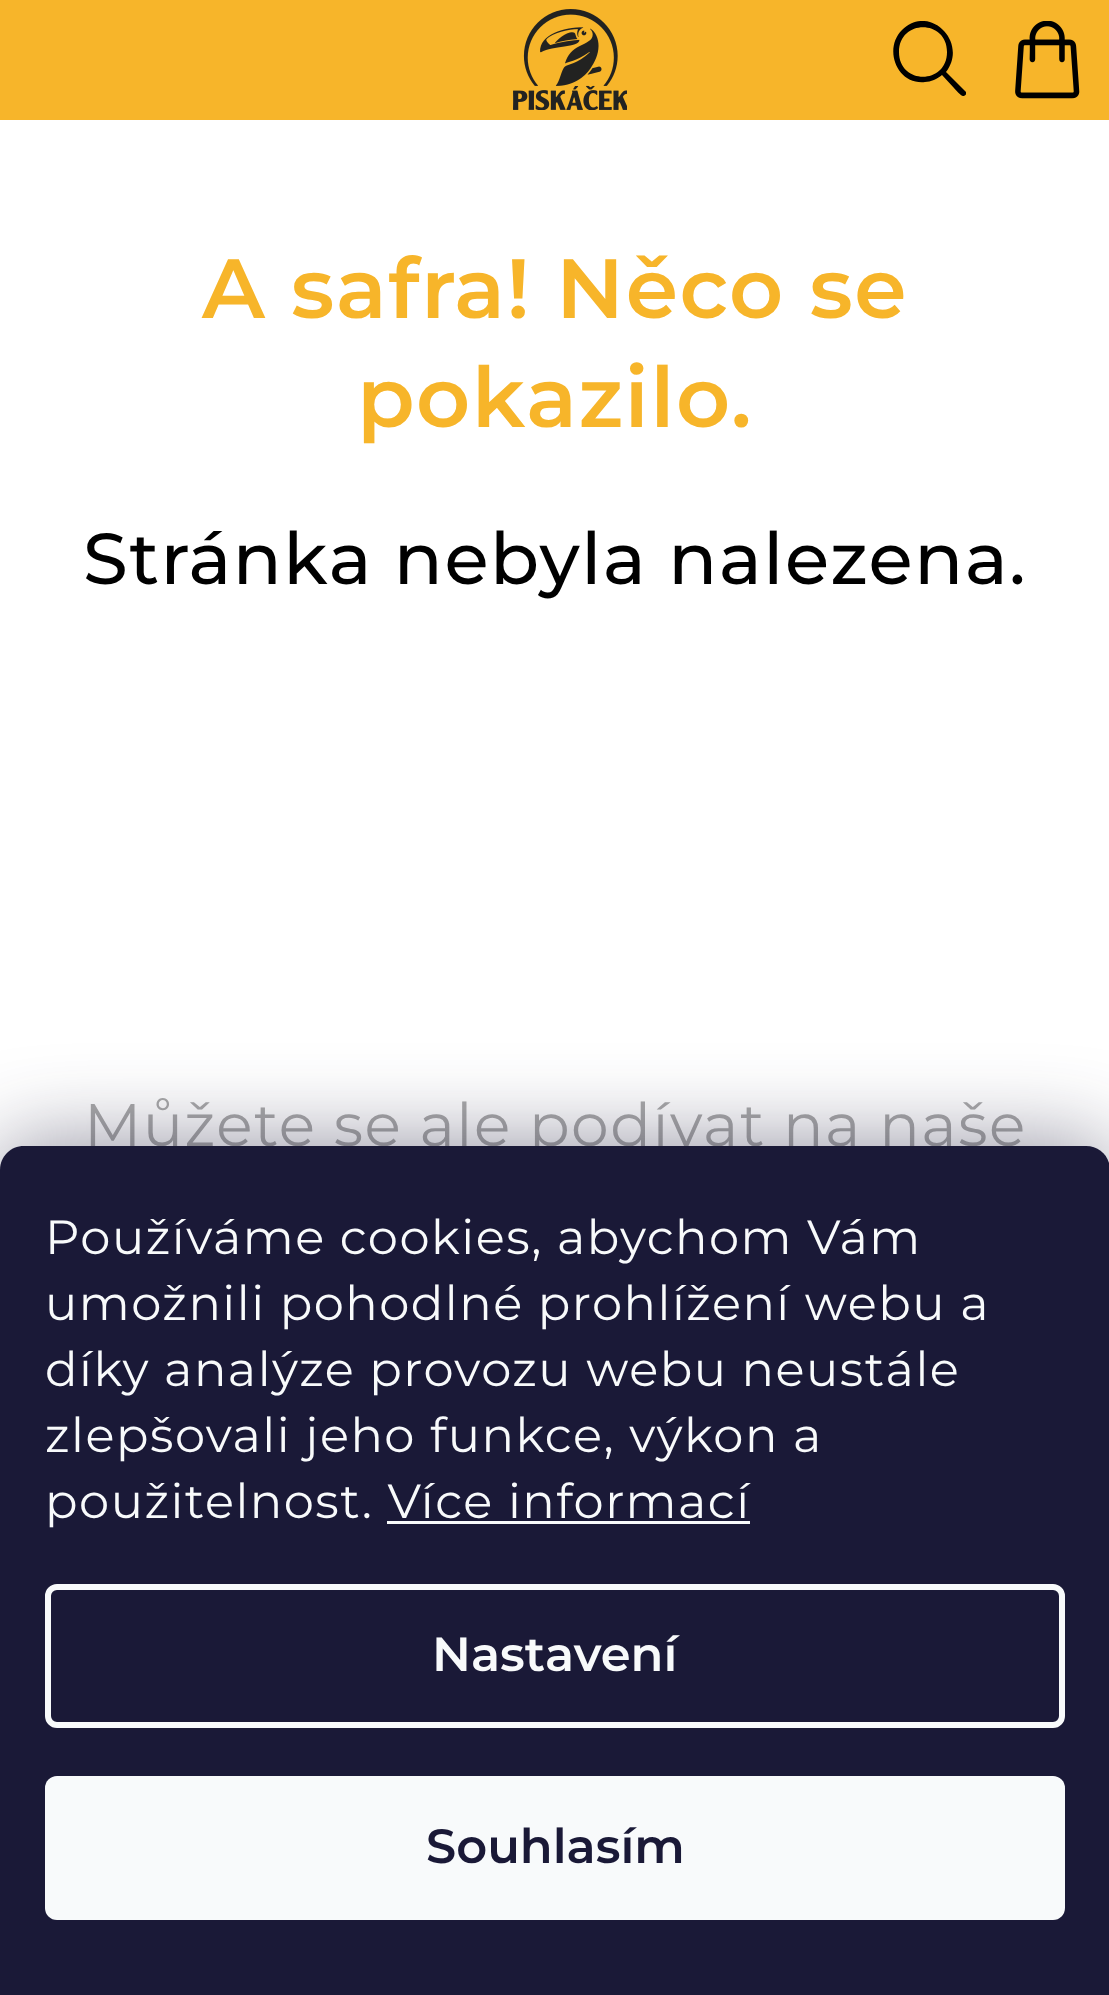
<!DOCTYPE html>
<meta charset="utf-8">
<style>body { margin: 0 } canvas { display: block }</style>
<canvas id="canvas" width="1109" height="1995"></canvas>
<script type="module">
  const canvas = document.getElementById("canvas");
  const g = canvas.getContext("2d");
  g.miterLimit = 4;
  g.fontKerning = "normal";
  function drawText(s, x, y, [font, color]) {
    g.font = font;
    g.fillStyle = color;
    g.fillText(s, x, y);
  }
  function fillBox(x, y, w, h, color) {
    g.fillStyle = color;
    g.fillRect(x, y, w, h);
  }
  function fillRounded(x, y, w, h, r, color) {
    g.fillStyle = color;
    g.beginPath();
    g.roundRect(x, y, w, h, r);
    g.fill();
  }
  async function drawPicture(src, x, y, w, h) {
    const img = new Image();
    img.src = src;
    await img.decode();
    g.drawImage(img, x, y, w, h);
  }

  const s1 = ["600 84px Montserrat", "#F7B52A"];
  const s2 = ["500 72px Montserrat", "#000000"];
  const s3 = ["60px Montserrat", "#AAAAAA"];
  const s4 = ["48px Montserrat", "#F8FAFB"];
  const s5 = ["600 48px Montserrat", "#F8FAFB"];
  const s6 = ["600 48px Montserrat", "#1A1937"];

  fillBox(0, 0, 1109, 1995, "#FFFFFF");
  fillBox(0, 0, 1109, 120, "#F7B52A");
  await drawPicture("pic1.png", 513, 9, 114, 101);
  g.save();
  g.beginPath();
  g.rect(888, 21, 78, 81);
  g.clip();
  g.fillStyle = "#000000";
  g.beginPath();
  g.moveTo(946, 72);
  g.lineTo(966, 92);
  g.bezierCurveTo(967, 94, 965, 96, 963, 96);
  g.bezierCurveTo(961, 96, 955, 89, 954, 88);
  g.lineTo(942, 75);
  g.bezierCurveTo(937, 79, 931, 82, 925, 82);
  g.bezierCurveTo(897, 85, 883, 49, 902, 30);
  g.bezierCurveTo(929, 3, 969, 42, 946, 72);
  g.closePath();
  g.moveTo(899, 52);
  g.bezierCurveTo(899, 85, 947, 85, 947, 52);
  g.bezierCurveTo(947, 19, 899, 19, 899, 52);
  g.closePath();
  g.fill();
  g.restore();
  await drawPicture("pic2.png", 1015, 21, 65, 78);
  g.letterSpacing = "1.5px";
  drawText("A safra! Něco se", 202, 318, s1);
  drawText("pokazilo.", 357, 427, s1);
  drawText("Stránka nebyla nalezena.", 83, 584, s2);
  drawText("Můžete se ale podívat na naše", 84, 1146, s3);
  g.fillStyle = "rgba(27, 25, 57, 0.5)";
  g.filter = "blur(45px)";
  g.beginPath();
  g.roundRect(0, 1146, 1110, 849, 24);
  g.fill();
  g.filter = "none";
  g.fillStyle = "#1A1937";
  g.beginPath();
  g.moveTo(24, 1146);
  g.lineTo(1086, 1146);
  g.bezierCurveTo(1099.5, 1146, 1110, 1156.5, 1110, 1170);
  g.lineTo(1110, 1995);
  g.lineTo(0, 1995);
  g.lineTo(0, 1170);
  g.bezierCurveTo(0, 1156.5, 10.5, 1146, 24, 1146);
  g.closePath();
  g.fill();
  drawText("Používáme cookies, abychom Vám", 45, 1254, s4);
  drawText("umožnili pohodlné prohlížení webu a", 45, 1320, s4);
  drawText("díky analýze provozu webu neustále", 45, 1386, s4);
  drawText("zlepšovali jeho funkce, výkon a", 45, 1452, s4);
  drawText("použitelnost. Více informací", 45, 1518, s4);
  fillBox(387, 1521, 363, 3, "#F8FAFB");
  g.beginPath();
  g.roundRect(48, 1587, 1014, 138, 9);
  g.strokeStyle = "#F8FAFB";
  g.lineWidth = 6;
  g.stroke();
  g.letterSpacing = "0px";
  drawText("Nastavení", 432, 1671, s5);
  fillRounded(45, 1776, 1020, 144, 12, "#F8FAFB");
  drawText("Souhlasím", 426, 1863, s6);
</script>
